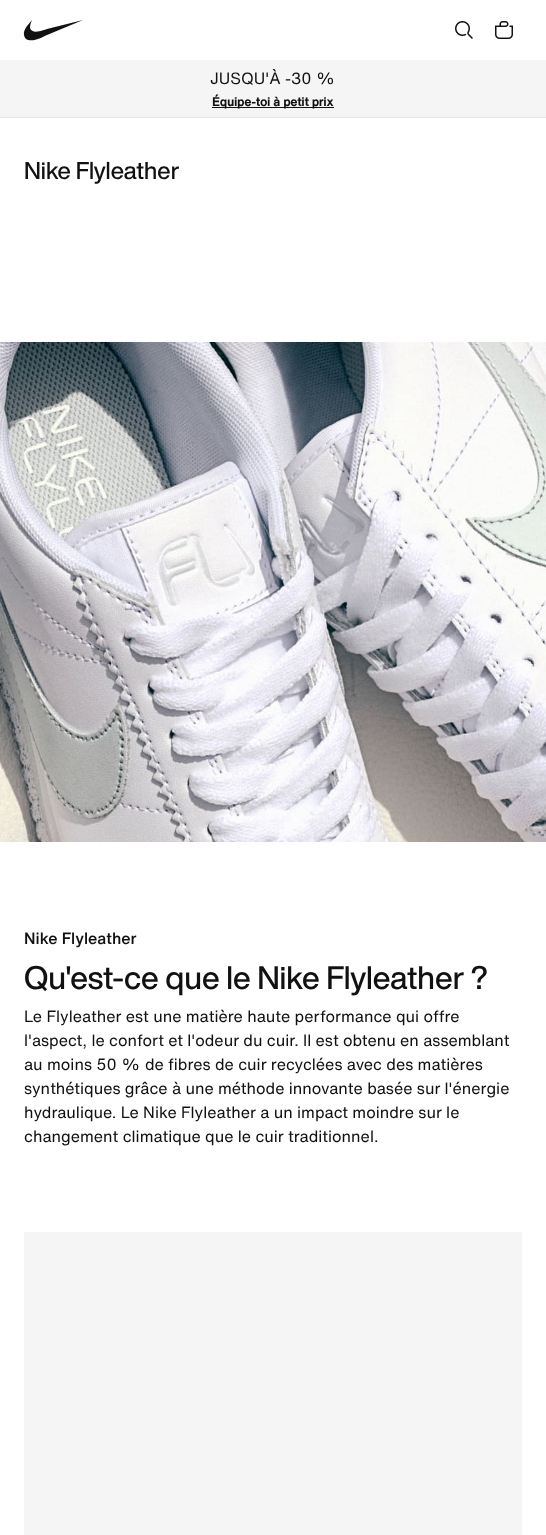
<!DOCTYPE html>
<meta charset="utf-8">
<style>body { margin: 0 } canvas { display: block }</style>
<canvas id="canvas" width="546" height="1535"></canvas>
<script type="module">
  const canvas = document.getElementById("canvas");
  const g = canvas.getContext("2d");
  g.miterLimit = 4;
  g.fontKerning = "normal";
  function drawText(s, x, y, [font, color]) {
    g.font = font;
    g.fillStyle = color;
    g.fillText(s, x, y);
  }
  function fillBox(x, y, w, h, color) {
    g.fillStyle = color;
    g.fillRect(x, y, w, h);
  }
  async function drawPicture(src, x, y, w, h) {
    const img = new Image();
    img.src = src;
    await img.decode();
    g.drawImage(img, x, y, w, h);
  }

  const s1 = ["16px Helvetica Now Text", "#111111"];
  const s2 = ["bold 12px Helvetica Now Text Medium", "#111111"];
  const s3 = ["500 24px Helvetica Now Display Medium", "#111111"];
  const s4 = ["500 16px Helvetica Now Text Medium", "#111111"];
  const s5 = ["500 32px Helvetica Now Display Medium", "#111111"];

  fillBox(0, 0, 546, 1535, "#FFFFFF");
  g.fillStyle = "#111111";
  g.beginPath();
  g.moveTo(83, 20);
  g.lineTo(47, 35);
  g.bezierCurveTo(43, 37, 26, 46, 24, 35);
  g.bezierCurveTo(23, 29, 29, 24, 32, 20);
  g.bezierCurveTo(31, 22, 30, 25, 30, 28);
  g.bezierCurveTo(32, 35, 44, 30, 47, 29);
  g.closePath();
  g.fill("evenodd");
  await drawPicture("pic1.png", 455, 21, 18, 18);
  await drawPicture("pic2.png", 495, 21, 18, 18);
  fillBox(0, 60, 546, 57, "#F5F5F5");
  fillBox(0, 117, 546, 1, "#E5E5E5");
  drawText("JUSQU'À -30 %", 210, 84, s1);
  fillBox(212, 107, 122, 1, "#111111");
  drawText("Équipe-toi à petit prix", 212, 106, s2);
  drawText("Nike Flyleather", 24, 179, s3);
  await drawPicture("pic3.png", 0, 342, 546, 500);
  drawText("Nike Flyleather", 24, 944, s4);
  drawText("Qu'est-ce que le Nike Flyleather ?", 24, 989, s5);
  drawText("Le Flyleather est une matière haute performance qui offre", 24, 1022, s1);
  drawText("l'aspect, le confort et l'odeur du cuir. Il est obtenu en assemblant", 24, 1046, s1);
  drawText("au moins 50 % de fibres de cuir recyclées avec des matières", 24, 1070, s1);
  drawText("synthétiques grâce à une méthode innovante basée sur l'énergie", 24, 1094, s1);
  drawText("hydraulique. Le Nike Flyleather a un impact moindre sur le", 24, 1118, s1);
  drawText("changement climatique que le cuir traditionnel.", 24, 1142, s1);
  fillBox(24, 1232, 498, 303, "#F5F5F5");
</script>
